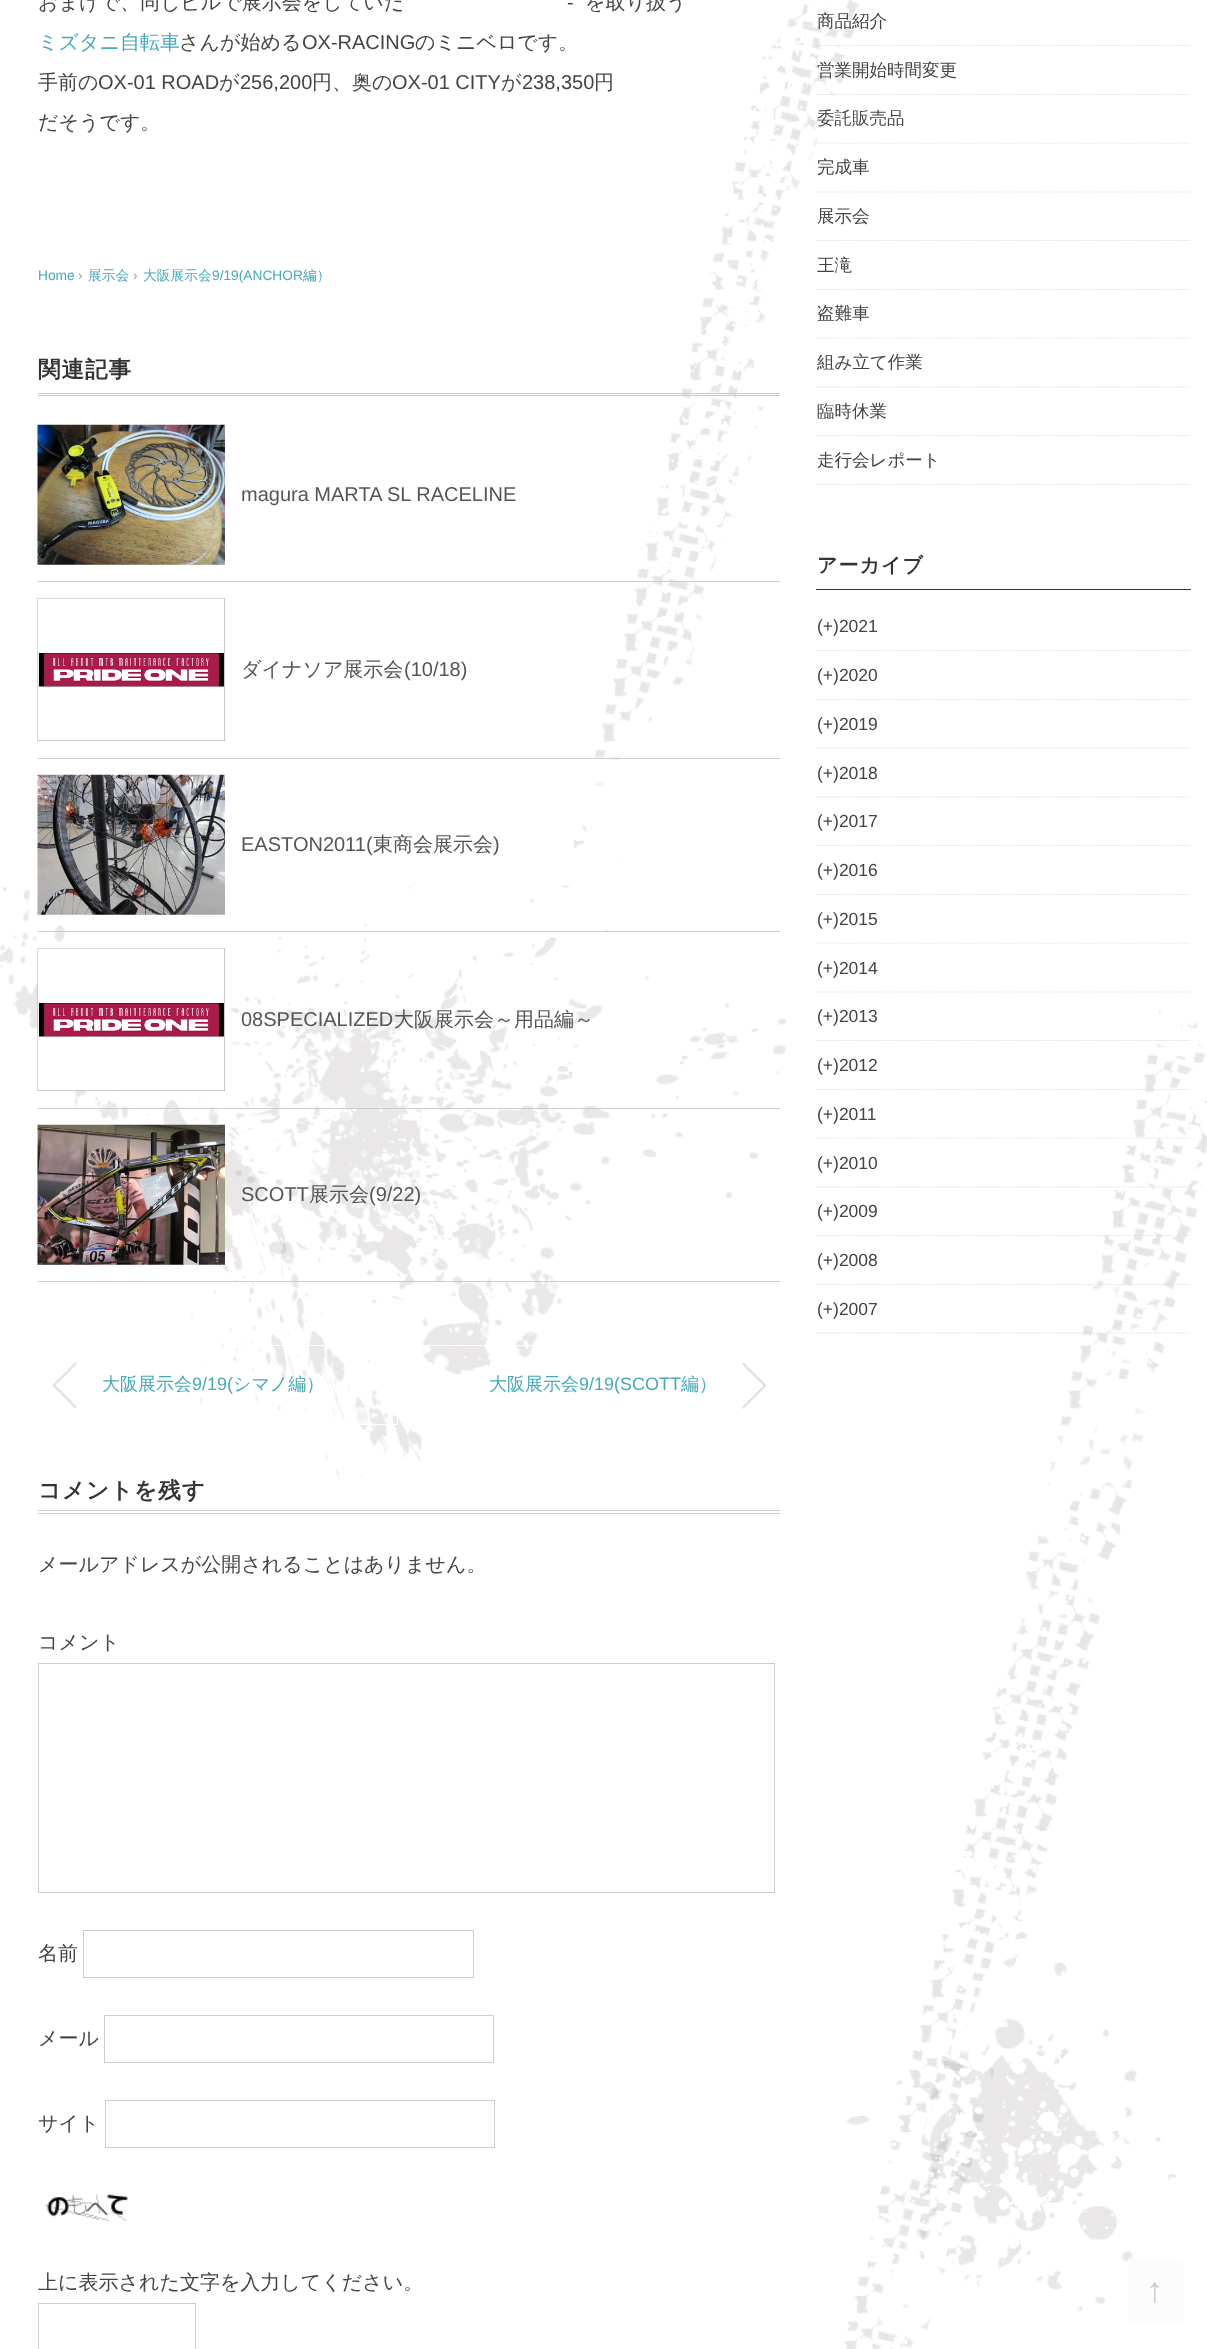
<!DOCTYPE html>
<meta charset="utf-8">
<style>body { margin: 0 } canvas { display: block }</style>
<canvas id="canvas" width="1207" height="2349"></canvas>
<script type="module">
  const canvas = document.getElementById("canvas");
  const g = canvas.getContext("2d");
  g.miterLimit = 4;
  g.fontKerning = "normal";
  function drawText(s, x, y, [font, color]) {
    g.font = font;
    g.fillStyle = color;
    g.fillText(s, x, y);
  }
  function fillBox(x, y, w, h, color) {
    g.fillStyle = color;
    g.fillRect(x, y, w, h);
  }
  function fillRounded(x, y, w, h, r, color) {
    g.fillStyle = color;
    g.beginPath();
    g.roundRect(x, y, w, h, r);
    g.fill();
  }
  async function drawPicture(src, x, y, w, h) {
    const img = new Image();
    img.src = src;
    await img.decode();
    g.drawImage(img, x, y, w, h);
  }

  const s1 = ["500 20px WenQuanYi Zen Hei", "#444444"];
  const s2 = ["20px Liberation Sans", "#444444"];
  const s3 = ["500 20px WenQuanYi Zen Hei", "#45AAB8"];
  const s4 = ["13.75px Liberation Sans", "#45AAB8"];
  const s5 = ["13.75px Liberation Sans", "#999999"];
  const s6 = ["500 13.75px WenQuanYi Zen Hei", "#45AAB8"];
  const s7 = ["bold 22.5px WenQuanYi Zen Hei", "#333333"];
  const s8 = ["20px Liberation Sans", "#555555"];
  const s9 = ["500 20px WenQuanYi Zen Hei", "#555555"];
  const s10 = ["500 18px WenQuanYi Zen Hei", "#45AAB8"];
  const s11 = ["18px Liberation Sans", "#45AAB8"];
  const s12 = ["500 17.5px WenQuanYi Zen Hei", "#444444"];
  const s13 = ["bold 20px WenQuanYi Zen Hei", "#333333"];
  const s14 = ["17.5px Liberation Sans", "#444444"];
  const s15 = ["35px Liberation Sans", "#CCCCCC"];

  fillBox(0, 0, 1207, 2349, "#FFFFFF");
  await drawPicture("pic1.png", 0, 0, 1207, 2349);
  drawText("おまけで、同じビルで展示会をしていた", 38, 9, s1);
  drawText("-", 567, 9, s2);
  drawText("を取り扱う", 585, 9, s1);
  drawText("ミズタニ自転車", 38, 49, s3);
  drawText("さんが始める", 179, 49, s1);
  drawText("OX-RACING", 302, 49, s2);
  drawText("のミニベロです。", 415, 49, s1);
  drawText("手前の", 38, 89, s1);
  drawText("OX-01 ROAD", 98, 89, s2);
  drawText("が", 219, 89, s1);
  drawText("256,200", 240, 89, s2);
  drawText("円、奥の", 312, 89, s1);
  drawText("OX-01 CITY", 392, 89, s2);
  drawText("が", 501, 89, s1);
  drawText("238,350", 522, 89, s2);
  drawText("円", 594, 89, s1);
  drawText("だそうです。", 38, 129, s1);
  drawText("Home", 38, 280, s4);
  drawText("›", 78, 280, s5);
  drawText("展示会", 88, 280, s6);
  drawText("›", 133, 280, s5);
  drawText("大阪展示会", 143, 280, s6);
  drawText("9/19(ANCHOR", 212, 280, s4);
  drawText("編）", 303, 280, s6);
  fillBox(38, 393, 742, 1, "#CCCCCC");
  fillBox(38, 395, 742, 1, "#CCCCCC");
  g.letterSpacing = "1px";
  drawText("関連記事", 38, 377, s7);
  fillBox(38, 581, 742, 1, "#CCCCCC");
  await drawPicture("pic2.png", 37, 424, 188, 141);
  g.letterSpacing = "0px";
  drawText("magura MARTA SL RACELINE", 241, 501, s8);
  fillBox(38, 758, 742, 1, "#CCCCCC");
  await drawPicture("pic3.png", 37, 598, 188, 143);
  drawText("ダイナソア展示会", 241, 676, s9);
  drawText("(10/18)", 404, 676, s8);
  fillBox(38, 931, 742, 1, "#CCCCCC");
  await drawPicture("pic4.png", 37, 774, 188, 141);
  drawText("EASTON2011(", 241, 851, s8);
  drawText("東商会展示会", 373, 851, s9);
  drawText(")", 493, 851, s8);
  fillBox(38, 1108, 742, 1, "#CCCCCC");
  await drawPicture("pic5.png", 37, 948, 188, 143);
  drawText("08SPECIALIZED", 241, 1026, s8);
  drawText("大阪展示会～用品編～", 394, 1026, s9);
  fillBox(38, 1281, 742, 1, "#CCCCCC");
  await drawPicture("pic6.png", 37, 1124, 188, 141);
  drawText("SCOTT", 241, 1201, s8);
  drawText("展示会", 309, 1201, s9);
  drawText("(9/22)", 369, 1201, s8);
  await drawPicture("pic7.png", 52, 1362, 25, 47);
  g.strokeStyle = "#FFFFFF";
  g.strokeRect(39.5, 1345.5, 358, 79);
  drawText("大阪展示会", 102, 1390, s10);
  drawText("9/19(", 192, 1390, s11);
  drawText("シマノ編）", 233, 1390, s10);
  await drawPicture("pic8.png", 742, 1362, 25, 47);
  g.strokeRect(421.5, 1345.5, 358, 79);
  drawText("大阪展示会", 489, 1390, s10);
  drawText("9/19(SCOTT", 579, 1390, s11);
  drawText("編）", 681, 1390, s10);
  fillBox(38, 1510, 742, 1, "#CCCCCC");
  fillBox(38, 1513, 742, 1, "#CCCCCC");
  g.letterSpacing = "1px";
  drawText("コメントを残す", 38, 1498, s7);
  g.letterSpacing = "0px";
  drawText("メールアドレスが公開されることはありません。", 38, 1571, s1);
  drawText("コメント", 38, 1649, s1);
  g.strokeStyle = "#CCCCCC";
  g.strokeRect(38.5, 1663.5, 736, 229);
  drawText("名前", 38, 1960, s1);
  g.strokeRect(83.5, 1930.5, 390, 47);
  drawText("メール", 38, 2045, s1);
  g.strokeRect(104.5, 2015.5, 389, 47);
  drawText("サイト", 38, 2130, s1);
  g.strokeRect(105.5, 2100.5, 389, 47);
  await drawPicture("pic9.png", 45, 2194, 83, 27);
  drawText("上に表示された文字を入力してください。", 38, 2289, s1);
  g.strokeRect(38.5, 2303.5, 157, 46);
  g.beginPath();
  g.moveTo(816, 45.5);
  g.lineTo(1191, 45.5);
  g.strokeStyle = "#DDDDDD";
  g.lineWidth = 1.2;
  g.setLineDash([1.25, 1.25]);
  g.stroke();
  drawText("商品紹介", 817, 27, s12);
  g.beginPath();
  g.moveTo(816, 94.5);
  g.lineTo(1191, 94.5);
  g.stroke();
  drawText("営業開始時間変更", 817, 76, s12);
  g.beginPath();
  g.moveTo(816, 143);
  g.lineTo(1191, 143);
  g.stroke();
  drawText("委託販売品", 817, 124, s12);
  g.beginPath();
  g.moveTo(816, 192);
  g.lineTo(1191, 192);
  g.stroke();
  drawText("完成車", 817, 173, s12);
  g.beginPath();
  g.moveTo(816, 240.5);
  g.lineTo(1191, 240.5);
  g.stroke();
  drawText("展示会", 817, 222, s12);
  g.beginPath();
  g.moveTo(816, 289.5);
  g.lineTo(1191, 289.5);
  g.stroke();
  drawText("王滝", 817, 271, s12);
  g.beginPath();
  g.moveTo(816, 338);
  g.lineTo(1191, 338);
  g.stroke();
  drawText("盗難車", 817, 319, s12);
  g.beginPath();
  g.moveTo(816, 387);
  g.lineTo(1191, 387);
  g.stroke();
  drawText("組み立て作業", 817, 368, s12);
  g.beginPath();
  g.moveTo(816, 435.5);
  g.lineTo(1191, 435.5);
  g.stroke();
  drawText("臨時休業", 817, 417, s12);
  g.beginPath();
  g.moveTo(816, 484.5);
  g.lineTo(1191, 484.5);
  g.stroke();
  drawText("走行会レポート", 817, 466, s12);
  fillBox(816, 589, 375, 1, "#990033");
  g.letterSpacing = "1px";
  drawText("アーカイブ", 817, 572, s13);
  g.beginPath();
  g.moveTo(816, 650.5);
  g.lineTo(1191, 650.5);
  g.stroke();
  g.letterSpacing = "0px";
  drawText("(+)2021", 817, 632, s14);
  g.beginPath();
  g.moveTo(816, 699.5);
  g.lineTo(1191, 699.5);
  g.stroke();
  drawText("(+)2020", 817, 681, s14);
  g.beginPath();
  g.moveTo(816, 748);
  g.lineTo(1191, 748);
  g.stroke();
  drawText("(+)2019", 817, 730, s14);
  g.beginPath();
  g.moveTo(816, 797);
  g.lineTo(1191, 797);
  g.stroke();
  drawText("(+)2018", 817, 779, s14);
  g.beginPath();
  g.moveTo(816, 845.5);
  g.lineTo(1191, 845.5);
  g.stroke();
  drawText("(+)2017", 817, 827, s14);
  g.beginPath();
  g.moveTo(816, 894.5);
  g.lineTo(1191, 894.5);
  g.stroke();
  drawText("(+)2016", 817, 876, s14);
  g.beginPath();
  g.moveTo(816, 943);
  g.lineTo(1191, 943);
  g.stroke();
  drawText("(+)2015", 817, 925, s14);
  g.beginPath();
  g.moveTo(816, 992);
  g.lineTo(1191, 992);
  g.stroke();
  drawText("(+)2014", 817, 974, s14);
  g.beginPath();
  g.moveTo(816, 1040.5);
  g.lineTo(1191, 1040.5);
  g.stroke();
  drawText("(+)2013", 817, 1022, s14);
  g.beginPath();
  g.moveTo(816, 1089.5);
  g.lineTo(1191, 1089.5);
  g.stroke();
  drawText("(+)2012", 817, 1071, s14);
  g.beginPath();
  g.moveTo(816, 1138);
  g.lineTo(1191, 1138);
  g.stroke();
  drawText("(+)2011", 817, 1120, s14);
  g.beginPath();
  g.moveTo(816, 1187);
  g.lineTo(1191, 1187);
  g.stroke();
  drawText("(+)2010", 817, 1169, s14);
  g.beginPath();
  g.moveTo(816, 1235.5);
  g.lineTo(1191, 1235.5);
  g.stroke();
  drawText("(+)2009", 817, 1217, s14);
  g.beginPath();
  g.moveTo(816, 1284.5);
  g.lineTo(1191, 1284.5);
  g.stroke();
  drawText("(+)2008", 817, 1266, s14);
  g.beginPath();
  g.moveTo(816, 1333);
  g.lineTo(1191, 1333);
  g.stroke();
  drawText("(+)2007", 817, 1315, s14);
  fillRounded(1128, 2258, 55, 67, 2.5, "#FCFCFC");
  drawText("↑", 1146, 2302, s15);
</script>
